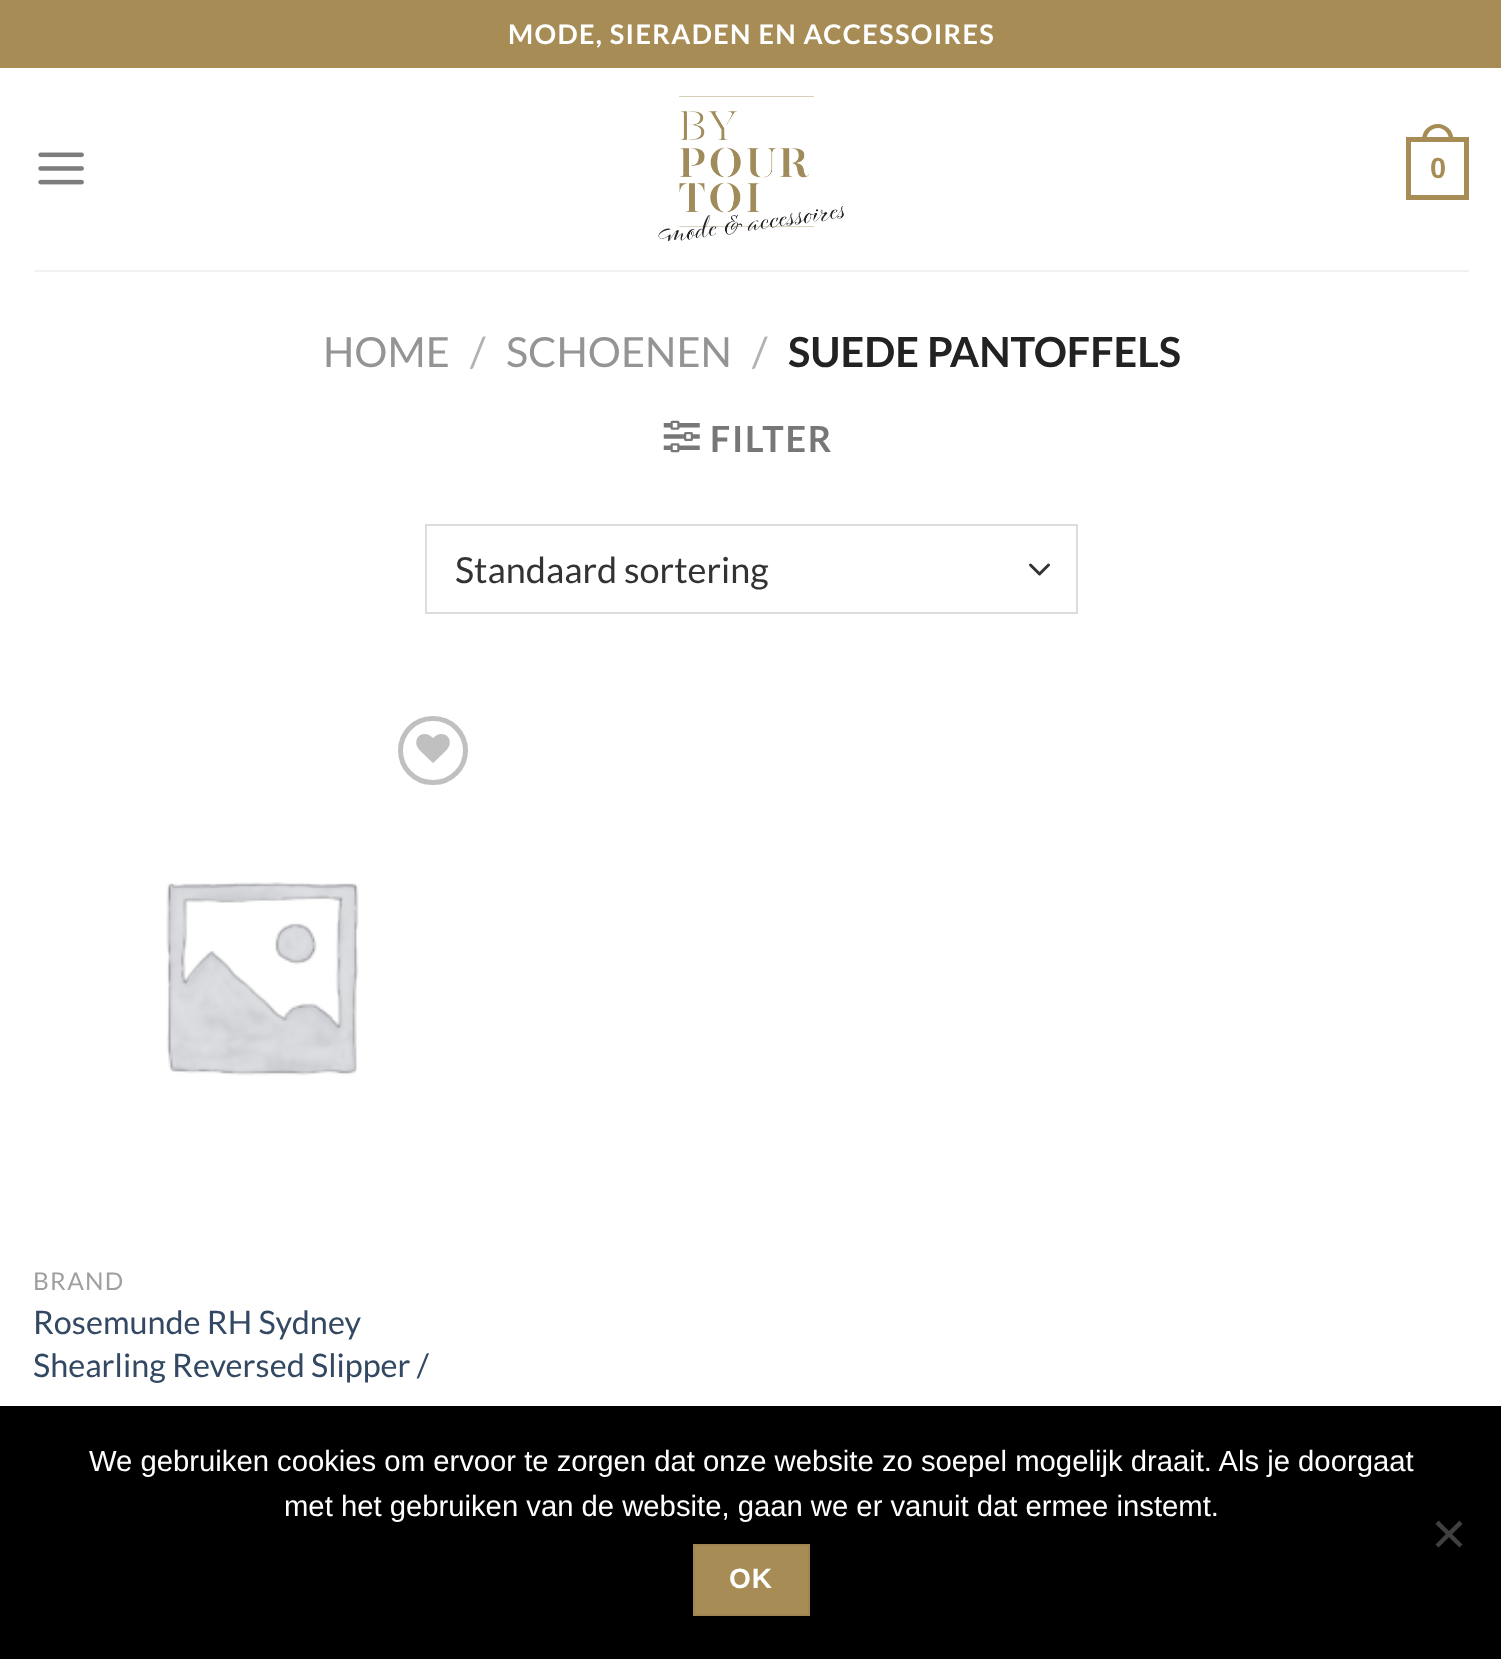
<!DOCTYPE html>
<meta charset="utf-8">
<style>body { margin: 0 } canvas { display: block }</style>
<canvas id="canvas" width="1501" height="1659"></canvas>
<script type="module">
  const canvas = document.getElementById("canvas");
  const g = canvas.getContext("2d");
  g.miterLimit = 4;
  g.fontKerning = "normal";
  function drawText(s, x, y, [font, color]) {
    g.font = font;
    g.fillStyle = color;
    g.fillText(s, x, y);
  }
  function fillBox(x, y, w, h, color) {
    g.fillStyle = color;
    g.fillRect(x, y, w, h);
  }
  async function drawPicture(src, x, y, w, h) {
    const img = new Image();
    img.src = src;
    await img.decode();
    g.drawImage(img, x, y, w, h);
  }

  const s1 = ["bold 27px Lato", "#FFFFFF"];
  const s2 = ["bold 29px Liberation Sans", "#A78C55"];
  const s3 = ["41.5px Lato", "#949494"];
  const s4 = ["41.5px Lato", "#B2B2B2"];
  const s5 = ["bold 41.5px Lato", "#222222"];
  const s6 = ["bold 36px Lato", "#777777"];
  const s7 = ["36px Lato", "#333333"];
  const s8 = ["24.5px Lato", "#A0A0A0"];
  const s9 = ["32.4px Lato", "#334862"];
  const s10 = ["29.25px Liberation Sans", "#FFFFFF"];
  const s11 = ["bold 28px Liberation Sans", "#FFFFFF"];

  fillBox(0, 0, 1501, 1659, "#FFFFFF");
  fillBox(0, 0, 1501, 68, "#A78C55");
  g.letterSpacing = "1.35px";
  drawText("MODE, SIERADEN EN ACCESSOIRES", 508, 44, s1);
  await drawPicture("pic1.png", 38, 152, 46, 33);
  await drawPicture("pic2.png", 658, 96, 186, 146);
  g.strokeStyle = "#A78C55";
  g.lineWidth = 5;
  g.strokeRect(1408.5, 139.5, 58, 58);
  g.fillStyle = "#A78C55";
  g.beginPath();
  g.moveTo(1438, 124);
  g.bezierCurveTo(1446.5, 124, 1453.5, 131, 1453.5, 139.5);
  g.lineTo(1453.5, 142);
  g.lineTo(1422, 142);
  g.lineTo(1422, 139.5);
  g.bezierCurveTo(1422, 131, 1429, 124, 1438, 124);
  g.closePath();
  g.moveTo(1438, 128);
  g.bezierCurveTo(1444, 128, 1449, 133.5, 1449, 139.5);
  g.lineTo(1449, 142);
  g.lineTo(1426.5, 142);
  g.lineTo(1426.5, 139.5);
  g.bezierCurveTo(1426.5, 133.5, 1431.5, 128, 1438, 128);
  g.closePath();
  g.fill("evenodd");
  g.letterSpacing = "0px";
  drawText("0", 1430, 178, s2);
  fillBox(34, 270, 1435, 2, "#F1F1F1");
  drawText("HOME", 323, 367, s3);
  drawText("/", 470, 367, s4);
  drawText("SCHOENEN", 506, 367, s3);
  drawText("/", 752, 367, s4);
  drawText("SUEDE PANTOFFELS", 788, 367, s5);
  await drawPicture("pic3.png", 663, 420, 37, 33);
  g.letterSpacing = "1.75px";
  drawText("FILTER", 710, 452, s6);
  g.beginPath();
  g.moveTo(1030.5, 565);
  g.lineTo(1039.5, 574);
  g.lineTo(1048.5, 565);
  g.strokeStyle = "#333333";
  g.lineWidth = 3;
  g.lineCap = "round";
  g.lineJoin = "round";
  g.stroke();
  g.strokeStyle = "#DDDDDD";
  g.lineWidth = 2;
  g.lineJoin = "miter";
  g.strokeRect(426, 525, 651, 88);
  g.letterSpacing = "0px";
  drawText("Standaard sortering", 455, 583, s7);
  g.beginPath();
  g.roundRect(400.5, 718.5, 65, 64, 32);
  g.strokeStyle = "#C0C0C0";
  g.lineWidth = 5;
  g.stroke();
  await drawPicture("pic4.png", 416, 734, 34, 29);
  await drawPicture("pic5.png", 166, 882, 193, 194);
  g.letterSpacing = "1.25px";
  drawText("BRAND", 33, 1290, s8);
  g.letterSpacing = "0px";
  drawText("Rosemunde RH Sydney", 33, 1334, s9);
  drawText("Shearling Reversed Slipper /", 33, 1377, s9);
  fillBox(0, 1406, 1501, 253, "#000000");
  drawText("We gebruiken cookies om ervoor te zorgen dat onze website zo soepel mogelijk draait. Als je doorgaat", 89, 1471, s10);
  drawText("met het gebruiken van de website, gaan we er vanuit dat ermee instemt.", 284, 1516, s10);
  g.fillStyle = "#404040";
  g.beginPath();
  g.moveTo(1459.5, 1520.5);
  g.lineTo(1462.5, 1524);
  g.lineTo(1438.5, 1547.5);
  g.lineTo(1435.5, 1544.5);
  g.closePath();
  g.fill();
  g.beginPath();
  g.moveTo(1435.5, 1524);
  g.lineTo(1438.5, 1520.5);
  g.lineTo(1462.5, 1544.5);
  g.lineTo(1459.5, 1547.5);
  g.closePath();
  g.fill();
  g.fillStyle = "#A78C55";
  g.beginPath();
  g.rect(694, 1545, 115, 70);
  g.fill();
  g.strokeStyle = "#9F8551";
  g.lineWidth = 2;
  g.stroke();
  g.letterSpacing = "1px";
  drawText("OK", 729, 1588, s11);
</script>
